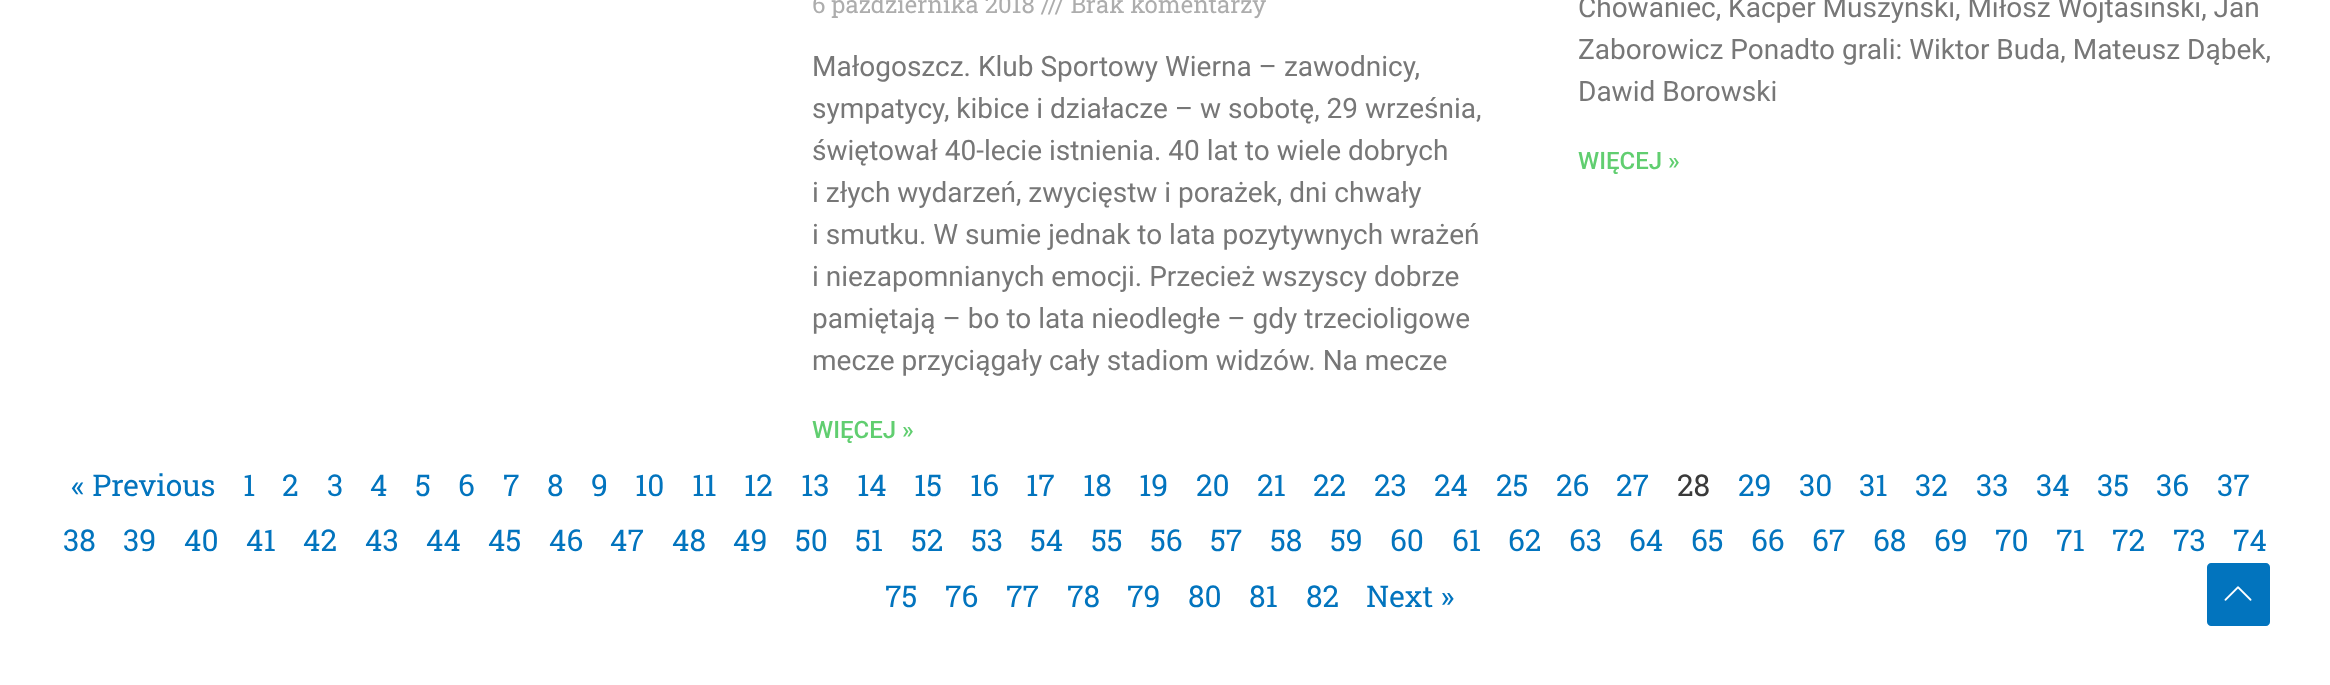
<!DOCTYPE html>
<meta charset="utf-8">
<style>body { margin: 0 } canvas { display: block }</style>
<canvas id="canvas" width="2330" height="685"></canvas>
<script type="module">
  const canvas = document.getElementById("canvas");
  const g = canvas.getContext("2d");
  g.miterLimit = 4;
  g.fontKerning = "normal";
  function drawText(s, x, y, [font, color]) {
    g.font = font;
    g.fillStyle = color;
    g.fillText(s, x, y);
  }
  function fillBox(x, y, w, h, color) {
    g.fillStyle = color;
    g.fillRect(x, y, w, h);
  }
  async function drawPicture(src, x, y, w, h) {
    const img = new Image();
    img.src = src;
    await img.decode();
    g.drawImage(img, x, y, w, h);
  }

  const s1 = ["24px Roboto Slab", "#ADADAD"];
  const s2 = ["28px Roboto", "#777777"];
  const s3 = ["500 24px Roboto", "#61CE70"];
  const s4 = ["30px Roboto Slab", "#0274BE"];
  const s5 = ["30px Roboto Slab", "#3A3A3A"];

  fillBox(0, 0, 2330, 685, "#FFFFFF");
  drawText("6 października 2018 /// Brak komentarzy", 812, 13, s1);
  drawText("Małogoszcz. Klub Sportowy Wierna – zawodnicy,", 812, 76, s2);
  drawText("sympatycy, kibice i działacze – w sobotę, 29 września,", 812, 118, s2);
  drawText("świętował 40-lecie istnienia. 40 lat to wiele dobrych", 812, 160, s2);
  drawText("i złych wydarzeń, zwycięstw i porażek, dni chwały", 812, 202, s2);
  drawText("i smutku. W sumie jednak to lata pozytywnych wrażeń", 812, 244, s2);
  drawText("i niezapomnianych emocji. Przecież wszyscy dobrze", 812, 286, s2);
  drawText("pamiętają – bo to lata nieodległe – gdy trzecioligowe", 812, 328, s2);
  drawText("mecze przyciągały cały stadiom widzów. Na mecze", 812, 370, s2);
  drawText("WIĘCEJ »", 812, 438, s3);
  drawText("Chowaniec, Kacper Muszyński, Miłosz Wojtasiński, Jan", 1578, 17, s2);
  drawText("Zaborowicz Ponadto grali: Wiktor Buda, Mateusz Dąbek,", 1578, 59, s2);
  drawText("Dawid Borowski", 1578, 101, s2);
  drawText("WIĘCEJ »", 1578, 169, s3);
  drawText("« Previous", 71, 496, s4);
  drawText("1", 243, 496, s4);
  drawText("2", 282, 496, s4);
  drawText("3", 327, 496, s4);
  drawText("4", 370, 496, s4);
  drawText("5", 415, 496, s4);
  drawText("6", 458, 496, s4);
  drawText("7", 503, 496, s4);
  drawText("8", 547, 496, s4);
  drawText("9", 591, 496, s4);
  drawText("10", 635, 496, s4);
  drawText("11", 692, 496, s4);
  drawText("12", 744, 496, s4);
  drawText("13", 801, 496, s4);
  drawText("14", 857, 496, s4);
  drawText("15", 914, 496, s4);
  drawText("16", 970, 496, s4);
  drawText("17", 1026, 496, s4);
  drawText("18", 1083, 496, s4);
  drawText("19", 1139, 496, s4);
  drawText("20", 1196, 496, s4);
  drawText("21", 1257, 496, s4);
  drawText("22", 1313, 496, s4);
  drawText("23", 1374, 496, s4);
  drawText("24", 1434, 496, s4);
  drawText("25", 1496, 496, s4);
  drawText("26", 1556, 496, s4);
  drawText("27", 1616, 496, s4);
  drawText("28", 1677, 496, s5);
  drawText("29", 1738, 496, s4);
  drawText("30", 1799, 496, s4);
  drawText("31", 1859, 496, s4);
  drawText("32", 1915, 496, s4);
  drawText("33", 1976, 496, s4);
  drawText("34", 2036, 496, s4);
  drawText("35", 2097, 496, s4);
  drawText("36", 2156, 496, s4);
  drawText("37", 2217, 496, s4);
  drawText("38", 63, 551, s4);
  drawText("39", 123, 551, s4);
  drawText("40", 184, 551, s4);
  drawText("41", 246, 551, s4);
  drawText("42", 303, 551, s4);
  drawText("43", 365, 551, s4);
  drawText("44", 426, 551, s4);
  drawText("45", 488, 551, s4);
  drawText("46", 549, 551, s4);
  drawText("47", 610, 551, s4);
  drawText("48", 672, 551, s4);
  drawText("49", 733, 551, s4);
  drawText("50", 795, 551, s4);
  drawText("51", 855, 551, s4);
  drawText("52", 911, 551, s4);
  drawText("53", 971, 551, s4);
  drawText("54", 1030, 551, s4);
  drawText("55", 1091, 551, s4);
  drawText("56", 1150, 551, s4);
  drawText("57", 1210, 551, s4);
  drawText("58", 1270, 551, s4);
  drawText("59", 1330, 551, s4);
  drawText("60", 1390, 551, s4);
  drawText("61", 1452, 551, s4);
  drawText("62", 1508, 551, s4);
  drawText("63", 1569, 551, s4);
  drawText("64", 1629, 551, s4);
  drawText("65", 1691, 551, s4);
  drawText("66", 1751, 551, s4);
  drawText("67", 1812, 551, s4);
  drawText("68", 1873, 551, s4);
  drawText("69", 1934, 551, s4);
  drawText("70", 1995, 551, s4);
  drawText("71", 2056, 551, s4);
  drawText("72", 2112, 551, s4);
  drawText("73", 2173, 551, s4);
  drawText("74", 2233, 551, s4);
  drawText("75", 885, 607, s4);
  drawText("76", 945, 607, s4);
  drawText("77", 1006, 607, s4);
  drawText("78", 1067, 607, s4);
  drawText("79", 1127, 607, s4);
  drawText("80", 1188, 607, s4);
  drawText("81", 1249, 607, s4);
  drawText("82", 1306, 607, s4);
  drawText("Next »", 1366, 607, s4);
  g.beginPath();
  g.moveTo(2266, 626);
  g.lineTo(2211, 626);
  g.bezierCurveTo(2209, 626, 2207, 624, 2207, 622);
  g.lineTo(2207, 567);
  g.bezierCurveTo(2207, 565, 2209, 563, 2211, 563);
  g.lineTo(2266, 563);
  g.bezierCurveTo(2268, 563, 2270, 565, 2270, 567);
  g.lineTo(2270, 622);
  g.bezierCurveTo(2270, 624, 2268, 626, 2266, 626);
  g.closePath();
  g.fill();
  await drawPicture("pic1.png", 2224, 586, 28, 15);
</script>
